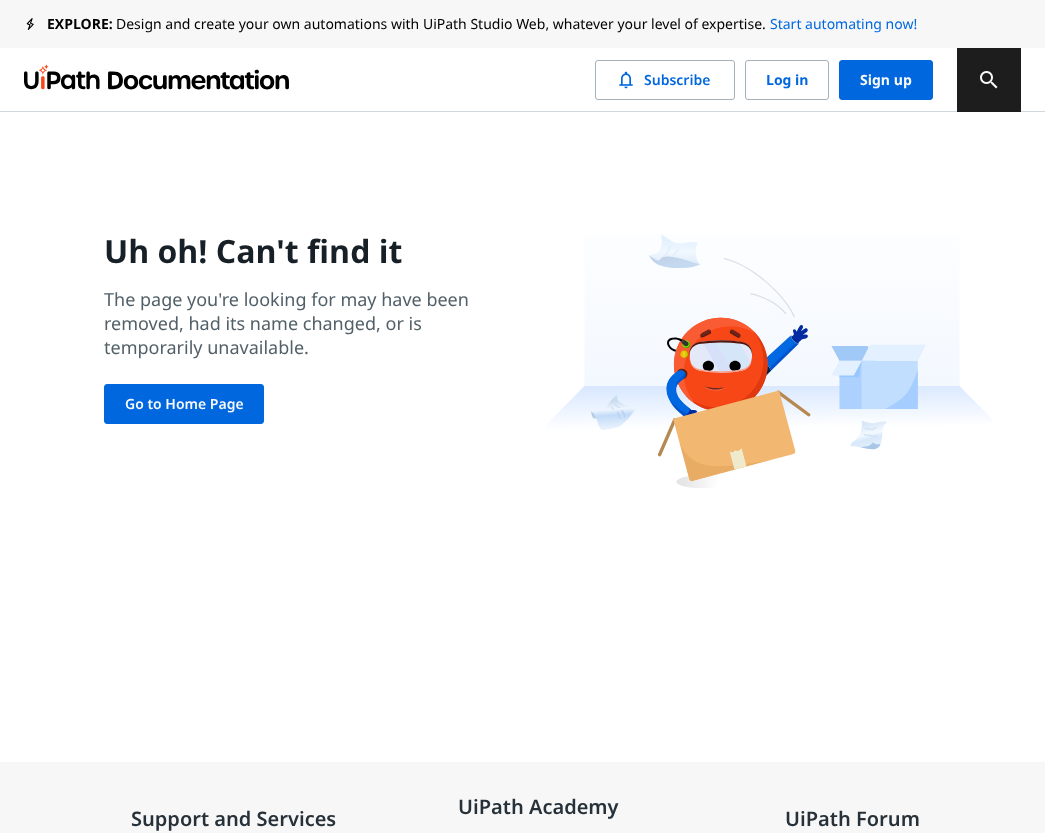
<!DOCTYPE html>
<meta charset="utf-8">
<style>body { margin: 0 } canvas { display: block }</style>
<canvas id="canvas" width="1045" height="833"></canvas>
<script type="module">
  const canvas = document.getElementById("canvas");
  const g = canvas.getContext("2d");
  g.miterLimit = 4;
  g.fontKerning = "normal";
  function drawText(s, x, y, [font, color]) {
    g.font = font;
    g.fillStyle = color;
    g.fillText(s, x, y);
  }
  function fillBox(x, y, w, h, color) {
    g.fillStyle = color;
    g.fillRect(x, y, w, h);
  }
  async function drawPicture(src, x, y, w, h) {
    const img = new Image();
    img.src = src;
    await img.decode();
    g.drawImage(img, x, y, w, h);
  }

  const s1 = ["bold 14px Noto Sans", "#000000"];
  const s2 = ["14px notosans", "#000000"];
  const s3 = ["14px notosans", "#0067DF"];
  const s4 = ["600 14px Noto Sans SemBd", "#0067DF"];
  const s5 = ["bold 14px Noto Sans", "#0067DF"];
  const s6 = ["bold 14px Noto Sans", "#F8F9FA"];
  const s7 = ["bold 32px Noto Sans", "#182027"];
  const s8 = ["18px notosans", "#526069"];
  const s9 = ["600 14px Noto Sans SemBd", "#F8F9FA"];
  const s10 = ["600 20px Noto Sans SemBd", "#273139"];

  fillBox(0, 0, 1045, 833, "#FFFFFF");
  fillBox(0, 0, 1045, 48, "#F7F7F7");
  await drawPicture("pic1.png", 26, 18, 8, 12);
  drawText("EXPLORE:", 47, 29, s1);
  drawText("Design and create your own automations with UiPath Studio Web, whatever your level of expertise.", 116, 29, s2);
  drawText("Start automating now!", 770, 29, s3);
  fillBox(0, 111, 1045, 1, "#CFD8DD");
  await drawPicture("pic2.png", 24, 64, 265, 26);
  g.beginPath();
  g.roundRect(595.5, 60.5, 139, 39, 2.5);
  g.strokeStyle = "#A4B1B8";
  g.stroke();
  await drawPicture("pic3.png", 619, 71, 14, 18);
  drawText("Subscribe", 644, 85, s4);
  g.beginPath();
  g.roundRect(745.5, 60.5, 83, 39, 2.5);
  g.stroke();
  drawText("Log in", 766, 85, s5);
  g.beginPath();
  g.roundRect(839.5, 60.5, 93, 39, 2.5);
  g.fill();
  g.strokeStyle = "#0067DF";
  g.stroke();
  drawText("Sign up", 860, 85, s6);
  fillBox(957, 48, 64, 64, "#1D1D1E");
  await drawPicture("pic4.png", 980, 71, 18, 18);
  drawText("Uh oh! Can't find it", 104, 263, s7);
  drawText("The page you're looking for may have been", 104, 306, s8);
  drawText("removed, had its name changed, or is", 104, 330, s8);
  drawText("temporarily unavailable.", 104, 354, s8);
  g.fillStyle = "#0067DF";
  g.beginPath();
  g.roundRect(104.5, 384.5, 159, 39, 2.5);
  g.fill();
  g.stroke();
  drawText("Go to Home Page", 125, 409, s9);
  await drawPicture("pic5.png", 547, 234, 446, 254);
  fillBox(0, 762, 1045, 1, "#F4F5F7");
  fillBox(0, 763, 1045, 70, "#F7F7F7");
  drawText("Support and Services", 131, 826, s10);
  drawText("UiPath Academy", 458, 814, s10);
  drawText("UiPath Forum", 785, 826, s10);
</script>
